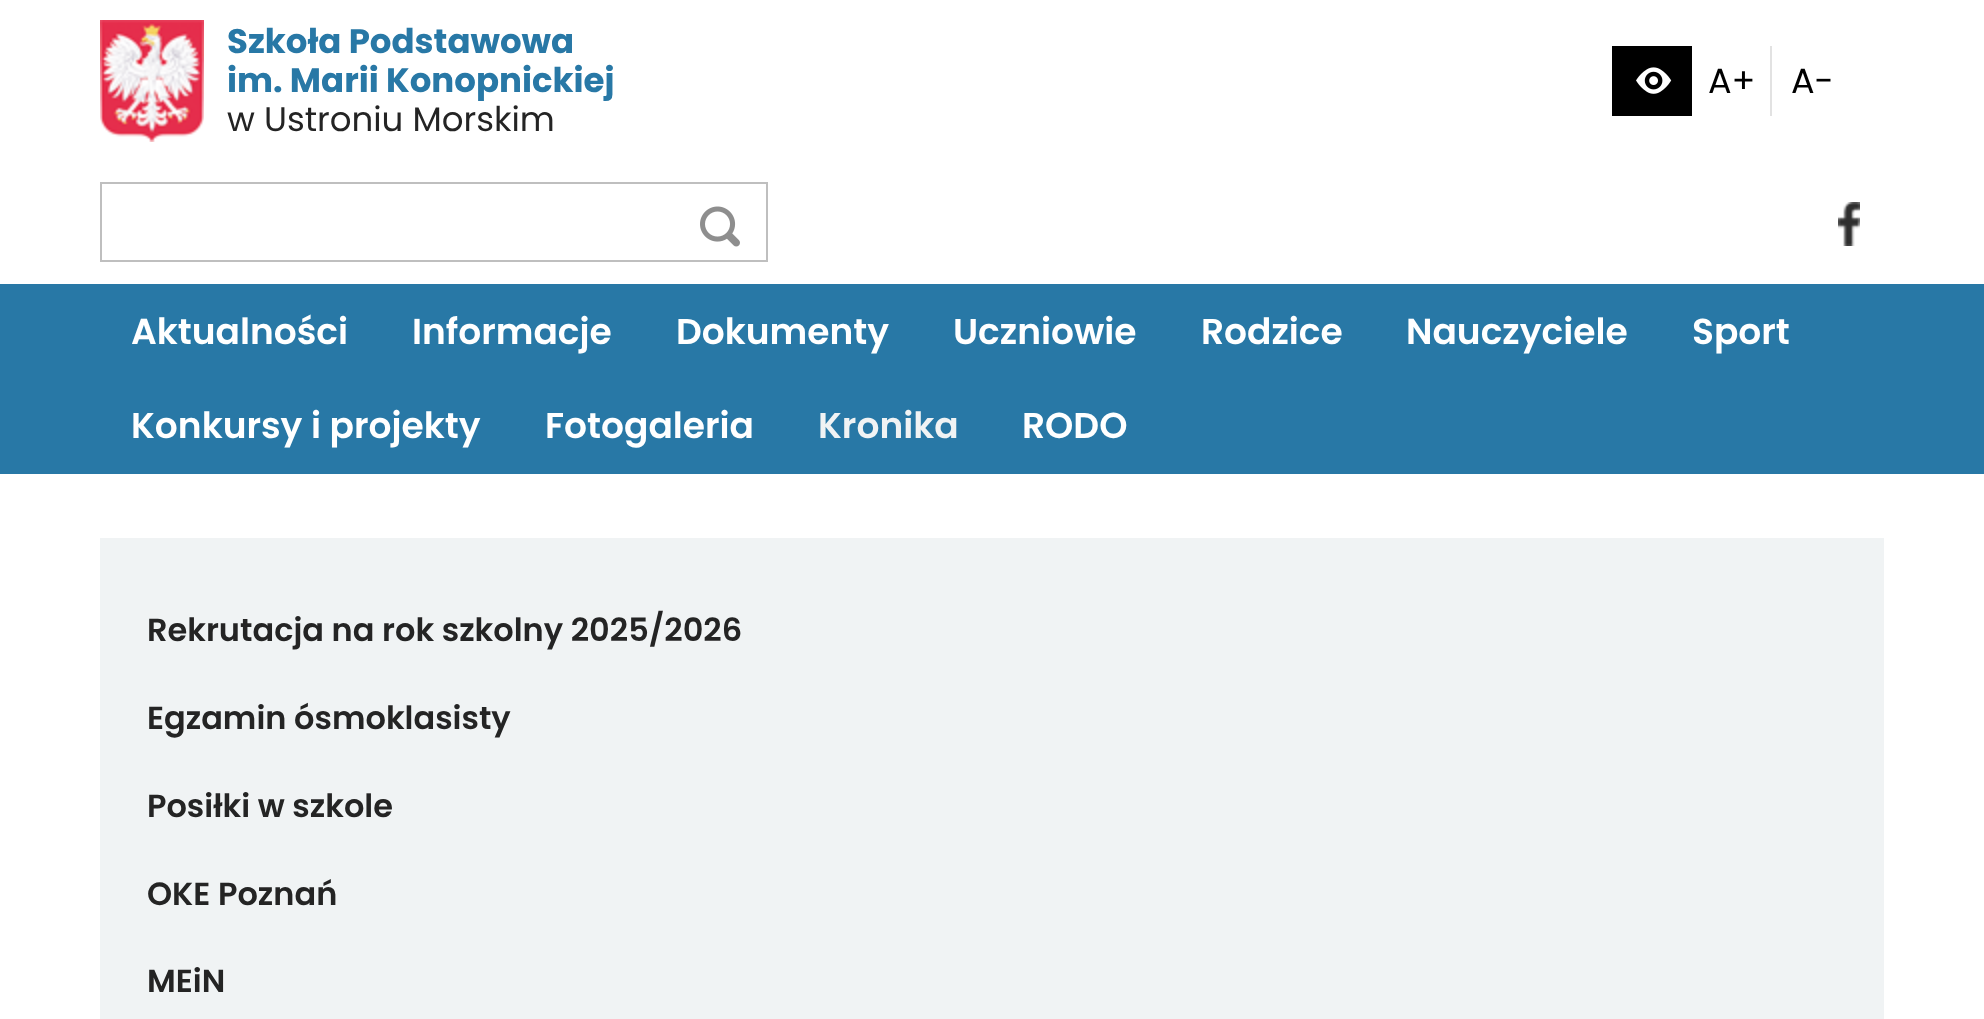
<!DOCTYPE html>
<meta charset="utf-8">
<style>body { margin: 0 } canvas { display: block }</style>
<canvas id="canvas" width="1984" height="1019"></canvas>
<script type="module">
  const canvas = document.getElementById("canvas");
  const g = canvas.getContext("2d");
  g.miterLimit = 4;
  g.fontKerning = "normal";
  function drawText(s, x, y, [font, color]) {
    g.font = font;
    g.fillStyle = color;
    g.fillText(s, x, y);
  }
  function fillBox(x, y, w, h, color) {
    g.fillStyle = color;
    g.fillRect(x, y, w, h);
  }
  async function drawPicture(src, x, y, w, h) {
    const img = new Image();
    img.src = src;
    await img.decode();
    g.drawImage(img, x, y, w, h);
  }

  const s1 = ["bold 34px Poppins", "#2878A6"];
  const s2 = ["34px Poppins", "#242424"];
  const s3 = ["35px Poppins", "#000000"];
  const s4 = ["600 36px Poppins", "#FFFFFF"];
  const s5 = ["600 36px Poppins", "#F0F3F4"];
  const s6 = ["600 32px Poppins", "#242424"];

  fillBox(0, 0, 1984, 1019, "#FFFFFF");
  await drawPicture("pic1.png", 100, 20, 104, 122);
  drawText("Szkoła Podstawowa", 227, 53, s1);
  drawText("im. Marii Konopnickiej", 227, 92, s1);
  drawText("w Ustroniu Morskim", 227, 131, s2);
  fillBox(1612, 46, 80, 70, "#000000");
  await drawPicture("pic2.png", 1636, 67, 36, 27);
  fillBox(1770, 46, 2, 70, "#E2E2E2");
  drawText("A+", 1708, 93, s3);
  drawText("A-", 1791, 93, s3);
  g.strokeStyle = "#BFBFBF";
  g.lineWidth = 2;
  g.strokeRect(101, 183, 666, 78);
  await drawPicture("pic3.png", 700, 206, 40, 41);
  await drawPicture("pic4.png", 1838, 202, 22, 44);
  fillBox(0, 284, 1984, 190, "#2878A6");
  drawText("Aktualności", 131, 344, s4);
  drawText("Informacje", 412, 344, s4);
  drawText("Dokumenty", 676, 344, s4);
  drawText("Uczniowie", 953, 344, s4);
  drawText("Rodzice", 1201, 344, s4);
  drawText("Nauczyciele", 1406, 344, s4);
  drawText("Sport", 1692, 344, s4);
  drawText("Konkursy i projekty", 131, 438, s4);
  drawText("Fotogaleria", 545, 438, s4);
  drawText("Kronika", 818, 438, s5);
  drawText("RODO", 1022, 438, s4);
  fillBox(100, 538, 1784, 481, "#F0F3F4");
  drawText("Rekrutacja na rok szkolny 2025/2026", 147, 641, s6);
  drawText("Egzamin ósmoklasisty", 147, 729, s6);
  drawText("Posiłki w szkole", 147, 817, s6);
  drawText("OKE Poznań", 147, 905, s6);
  drawText("MEiN", 147, 992, s6);
</script>
